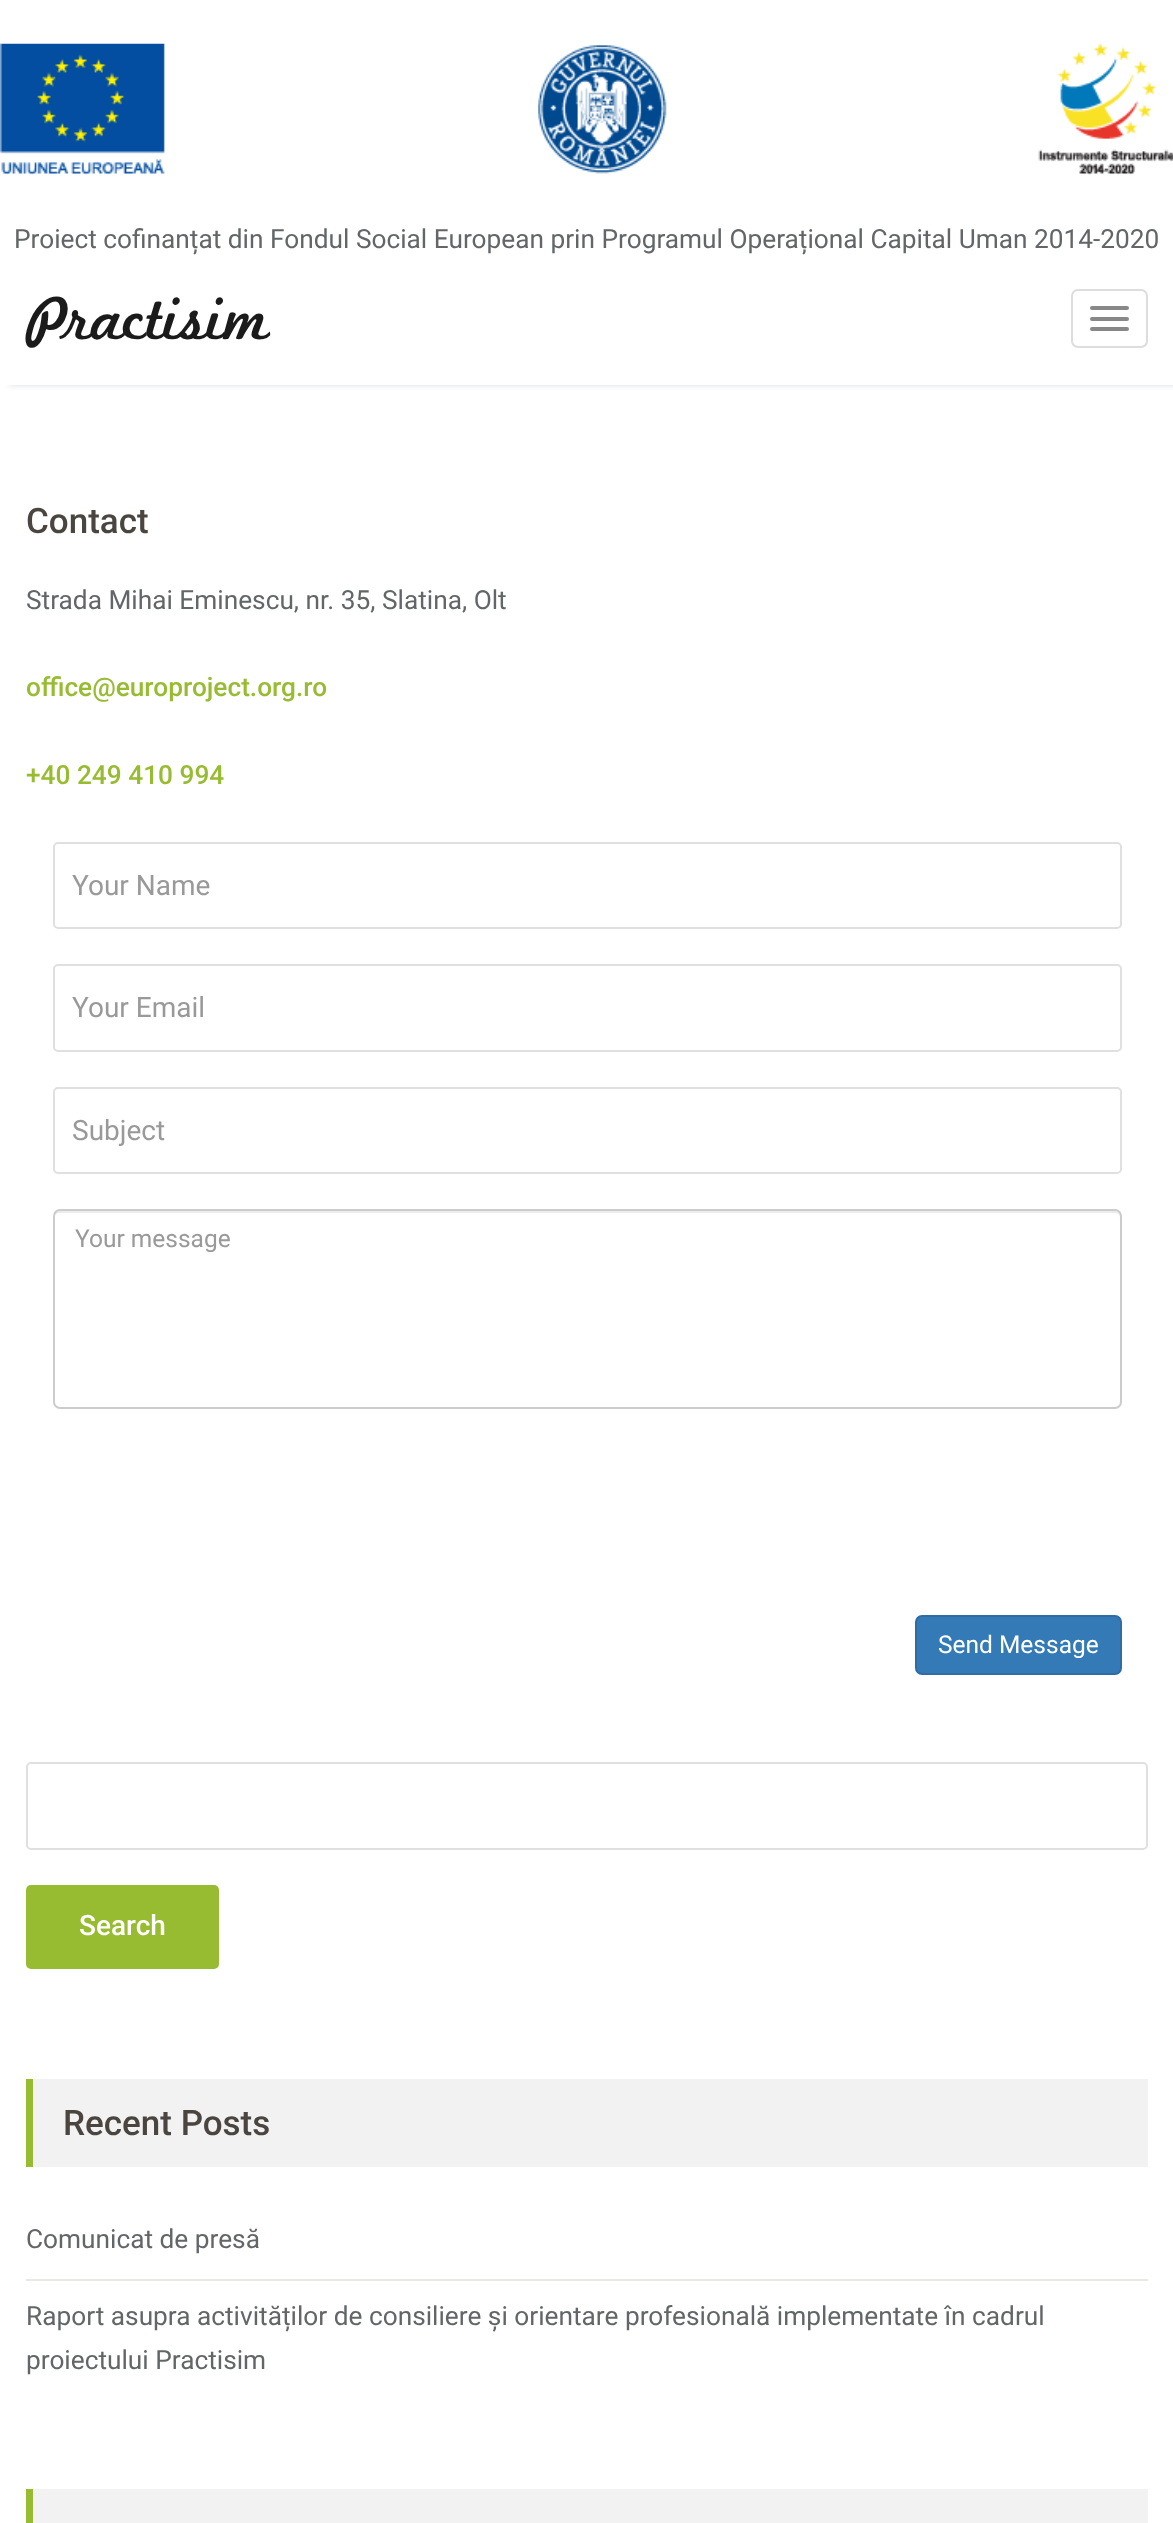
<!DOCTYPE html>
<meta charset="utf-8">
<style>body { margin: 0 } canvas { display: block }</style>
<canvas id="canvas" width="1173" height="2523"></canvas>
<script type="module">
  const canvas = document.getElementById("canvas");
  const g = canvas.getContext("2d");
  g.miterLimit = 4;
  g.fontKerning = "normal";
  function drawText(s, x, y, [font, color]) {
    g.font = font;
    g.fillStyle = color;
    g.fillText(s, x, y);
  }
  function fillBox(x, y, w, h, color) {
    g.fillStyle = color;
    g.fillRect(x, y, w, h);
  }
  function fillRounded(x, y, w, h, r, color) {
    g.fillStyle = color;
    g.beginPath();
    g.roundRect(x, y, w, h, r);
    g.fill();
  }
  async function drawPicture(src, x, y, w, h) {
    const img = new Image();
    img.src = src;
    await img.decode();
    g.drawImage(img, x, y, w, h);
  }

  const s1 = ["26.25px Roboto", "#626668"];
  const s2 = ["63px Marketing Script", "#1B1B1B"];
  const s3 = ["500 35px Roboto", "#4B453F"];
  const s4 = ["500 26.25px Roboto", "#97BC31"];
  const s5 = ["28px Roboto", "#999999"];
  const s6 = ["24.5px Roboto", "#999999"];
  const s7 = ["24.5px Roboto", "#FFFFFF"];
  const s8 = ["500 28px Roboto", "#FFFFFF"];

  fillBox(0, 0, 1173, 2523, "#FFFFFF");
  g.save();
  g.beginPath();
  g.rect(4, 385, 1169, 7);
  g.clip();
  g.fillStyle = "#E8ECEE";
  g.filter = "blur(2.5px)";
  g.beginPath();
  g.rect(9, 2, 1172, 385);
  g.fill();
  g.filter = "none";
  g.restore();
  await drawPicture("pic1.png", 0, 43, 1173, 132);
  drawText("Proiect cofinanțat din Fondul Social European prin Programul Operațional Capital Uman 2014-2020", 14, 248, s1);
  drawText("Practisim", 26, 339, s2);
  g.beginPath();
  g.roundRect(1072, 290, 75, 57, 6);
  g.strokeStyle = "#DDDDDD";
  g.lineWidth = 2;
  g.stroke();
  fillRounded(1090, 306, 39, 4, 2, "#888888");
  fillRounded(1090, 317, 39, 4, 2, "#888888");
  fillRounded(1090, 327, 39, 4, 2, "#888888");
  drawText("Contact", 26, 533, s3);
  drawText("Strada Mihai Eminescu, nr. 35, Slatina, Olt", 26, 609, s1);
  drawText("office@europroject.org.ro", 26, 696, s4);
  drawText("+40 249 410 994", 26, 784, s4);
  g.beginPath();
  g.roundRect(54, 843, 1067, 85, 4);
  g.strokeStyle = "#E0E0E0";
  g.stroke();
  drawText("Your Name", 72, 895, s5);
  g.beginPath();
  g.roundRect(54, 965, 1067, 86, 4);
  g.stroke();
  drawText("Your Email", 72, 1017, s5);
  g.beginPath();
  g.roundRect(54, 1088, 1067, 85, 4);
  g.stroke();
  drawText("Subject", 72, 1140, s5);
  g.fillStyle = "#ECECEC";
  g.beginPath();
  g.moveTo(60, 1213);
  g.lineTo(1115, 1213);
  g.bezierCurveTo(1118, 1213, 1120, 1215, 1120, 1218);
  g.lineTo(1120, 1216);
  g.bezierCurveTo(1120, 1213, 1118, 1211, 1115, 1211);
  g.lineTo(59, 1211);
  g.bezierCurveTo(56, 1211, 54, 1213, 54, 1216);
  g.lineTo(54, 1218);
  g.bezierCurveTo(54, 1215, 57, 1213, 60, 1213);
  g.closePath();
  g.fill();
  g.beginPath();
  g.roundRect(54, 1210, 1067, 198, 6);
  g.strokeStyle = "#CCCCCC";
  g.stroke();
  drawText("Your message", 75, 1247, s6);
  g.fillStyle = "#337AB7";
  g.beginPath();
  g.roundRect(916, 1616, 205, 58, 6);
  g.fill();
  g.strokeStyle = "#2E6DA4";
  g.stroke();
  drawText("Send Message", 938, 1653, s7);
  g.beginPath();
  g.roundRect(27, 1763, 1120, 86, 4);
  g.strokeStyle = "#E0E0E0";
  g.stroke();
  fillRounded(26, 1885, 193, 84, 5, "#97BC31");
  drawText("Search", 79, 1935, s8);
  fillBox(33, 2079, 1115, 88, "#F2F2F2");
  fillBox(26, 2079, 7, 88, "#97BC31");
  drawText("Recent Posts", 63, 2135, s3);
  drawText("Comunicat de presă", 26, 2248, s1);
  fillBox(26, 2279, 1122, 2, "#EAE7E4");
  drawText("Raport asupra activităților de consiliere și orientare profesională implementate în cadrul", 26, 2325, s1);
  drawText("proiectului Practisim", 26, 2369, s1);
  fillBox(33, 2489, 1115, 34, "#F2F2F2");
  fillBox(26, 2489, 7, 34, "#97BC31");
</script>
